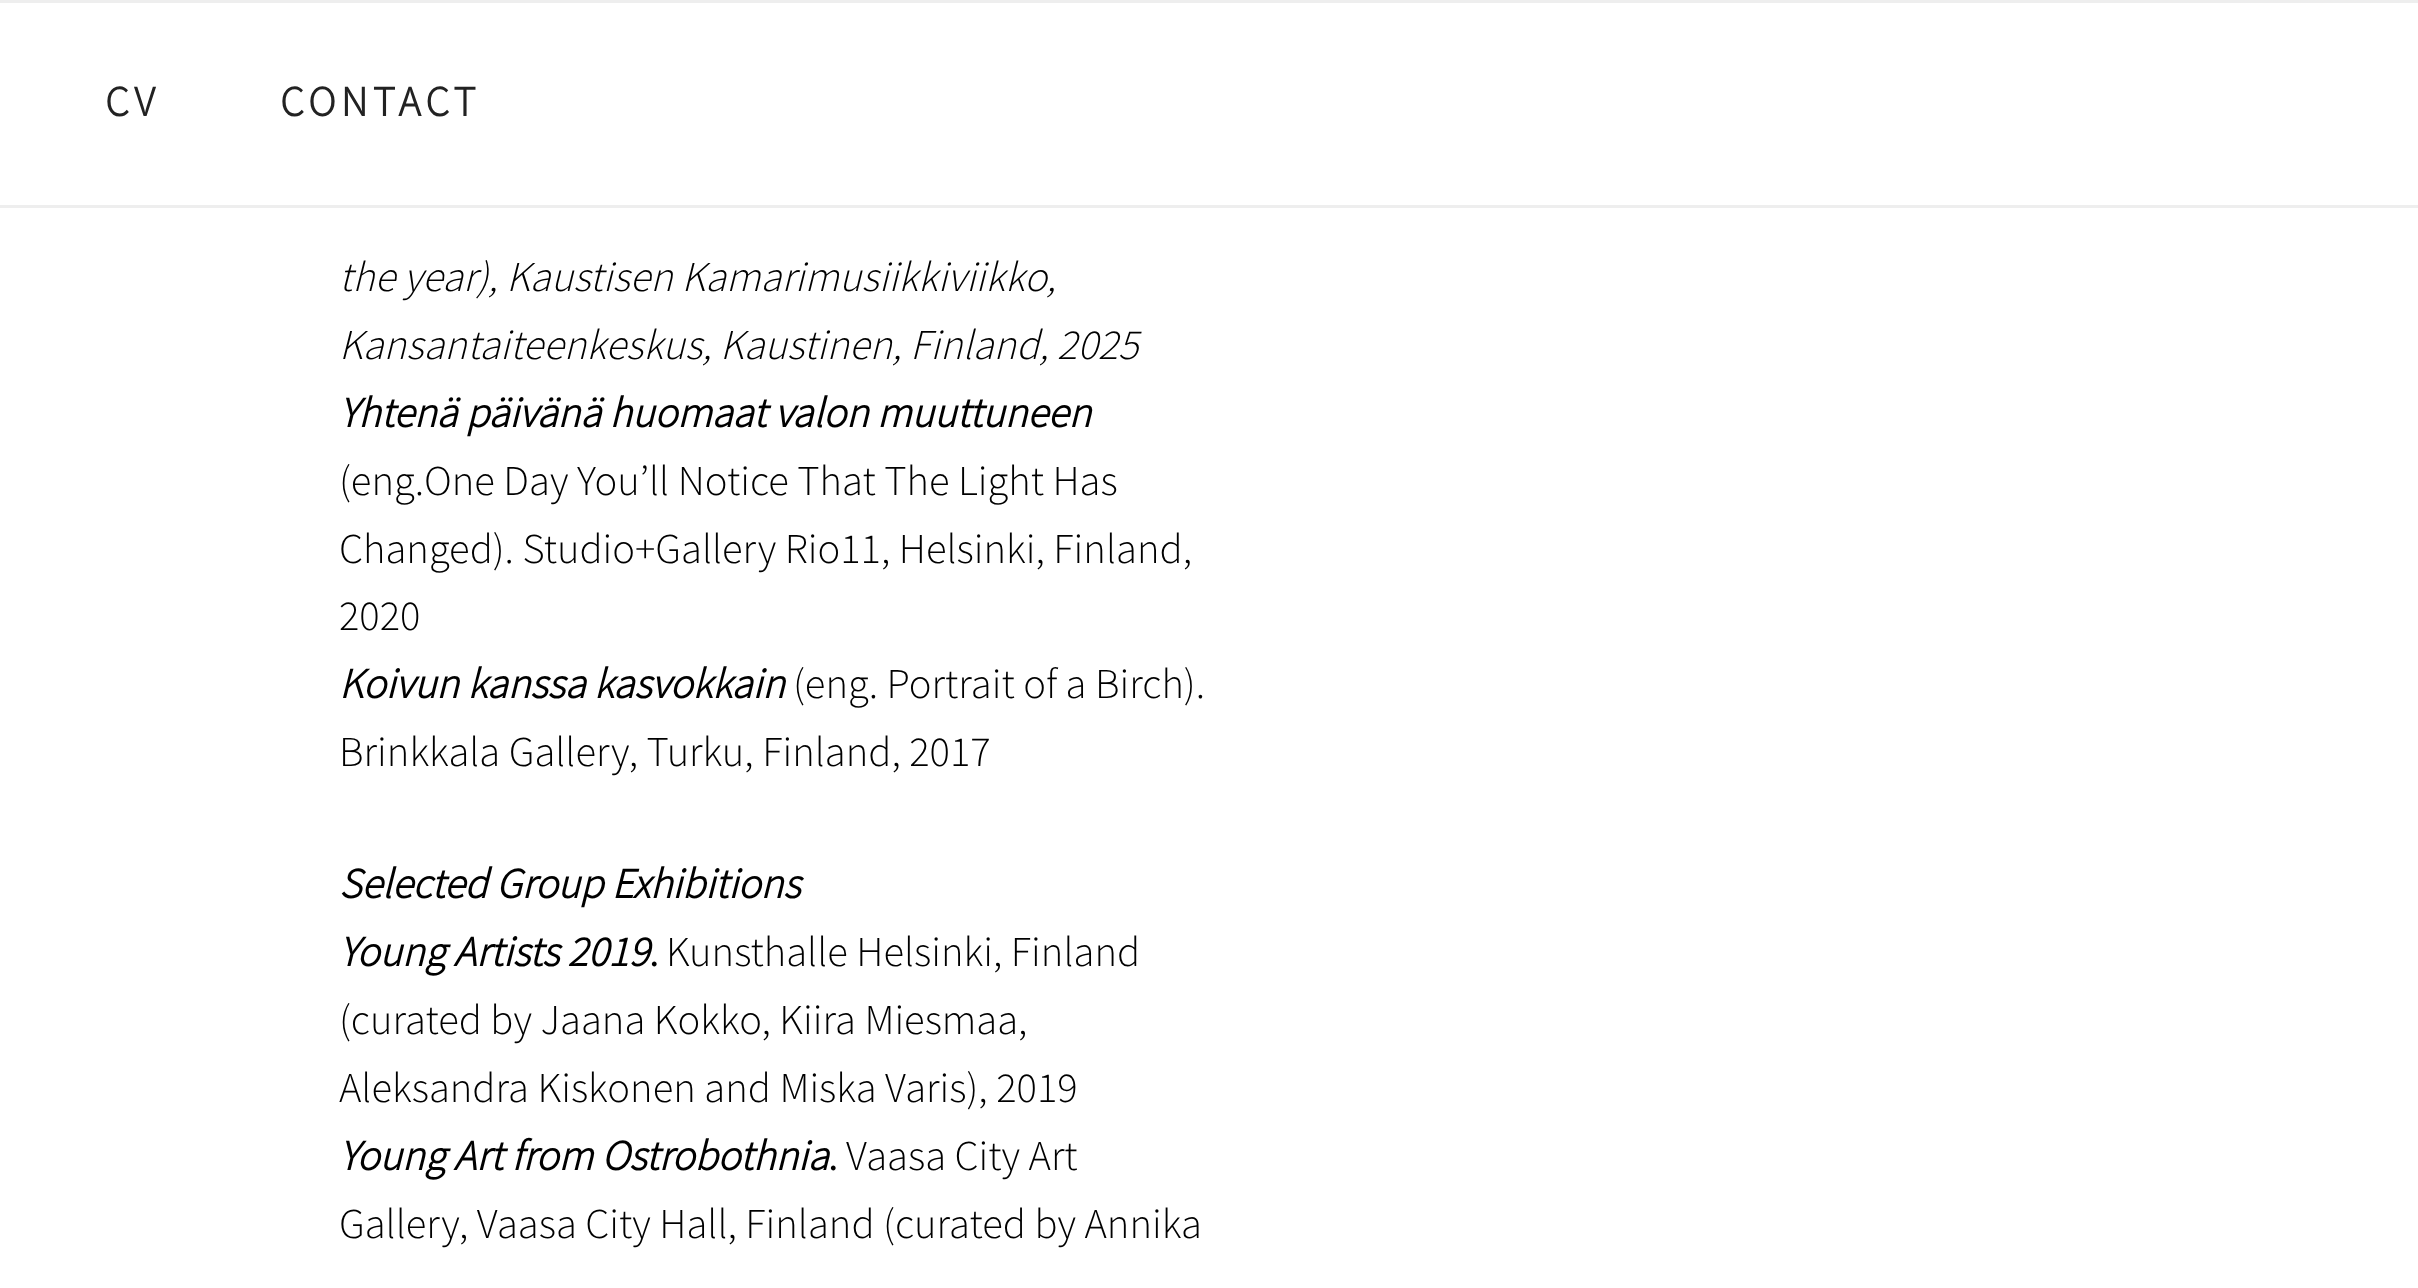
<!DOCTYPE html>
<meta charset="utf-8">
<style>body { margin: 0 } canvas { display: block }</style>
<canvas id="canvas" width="2418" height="1288"></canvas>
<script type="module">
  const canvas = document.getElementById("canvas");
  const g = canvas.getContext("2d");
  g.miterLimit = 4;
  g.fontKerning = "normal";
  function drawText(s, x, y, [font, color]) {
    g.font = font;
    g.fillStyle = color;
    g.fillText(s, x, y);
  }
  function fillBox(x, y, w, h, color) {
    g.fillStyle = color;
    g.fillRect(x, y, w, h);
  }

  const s1 = ["bold 42.5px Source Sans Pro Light", "#222222"];
  const s2 = ["italic 300 42.5px Source Sans Pro Light", "#000000"];
  const s3 = ["italic bold 42.5px Source Sans Pro Light", "#000000"];
  const s4 = ["300 42.5px Source Sans Pro Light", "#000000"];
  const s5 = ["bold 42.5px Source Sans Pro Light", "#000000"];

  fillBox(0, 0, 2418, 1288, "#FFFFFF");
  fillBox(0, 0, 2418, 3, "#EEEEEE");
  fillBox(0, 205, 2418, 3, "#EEEEEE");
  g.letterSpacing = "5px";
  drawText("CV", 105, 116, s1);
  drawText("CONTACT", 280, 116, s1);
  g.letterSpacing = "0px";
  drawText("the year), Kaustisen Kamarimusiikkiviikko,", 339, 291, s2);
  drawText("Kansantaiteenkeskus, Kaustinen, Finland, 2025", 339, 359, s2);
  drawText("Yhtenä päivänä huomaat valon muuttuneen", 339, 427, s3);
  drawText("(eng.One Day You’ll Notice That The Light Has", 339, 495, s4);
  drawText("Changed). Studio+Gallery Rio11, Helsinki, Finland,", 339, 563, s4);
  drawText("2020", 339, 630, s4);
  drawText("Koivun kanssa kasvokkain", 339, 698, s3);
  drawText("(eng. Portrait of a Birch).", 793, 698, s4);
  drawText("Brinkkala Gallery, Turku, Finland, 2017", 339, 766, s4);
  drawText("Selected Group Exhibitions", 339, 898, s3);
  drawText("Young Artists 2019", 339, 966, s3);
  drawText(".", 649, 966, s5);
  drawText("Kunsthalle Helsinki, Finland", 666, 966, s4);
  drawText("(curated by Jaana Kokko, Kiira Miesmaa,", 339, 1034, s4);
  drawText("Aleksandra Kiskonen and Miska Varis), 2019", 339, 1102, s4);
  drawText("Young Art from Ostrobothnia", 339, 1170, s3);
  drawText(".", 828, 1170, s5);
  drawText("Vaasa City Art", 846, 1170, s4);
  drawText("Gallery, Vaasa City Hall, Finland (curated by Annika", 339, 1238, s4);
</script>
